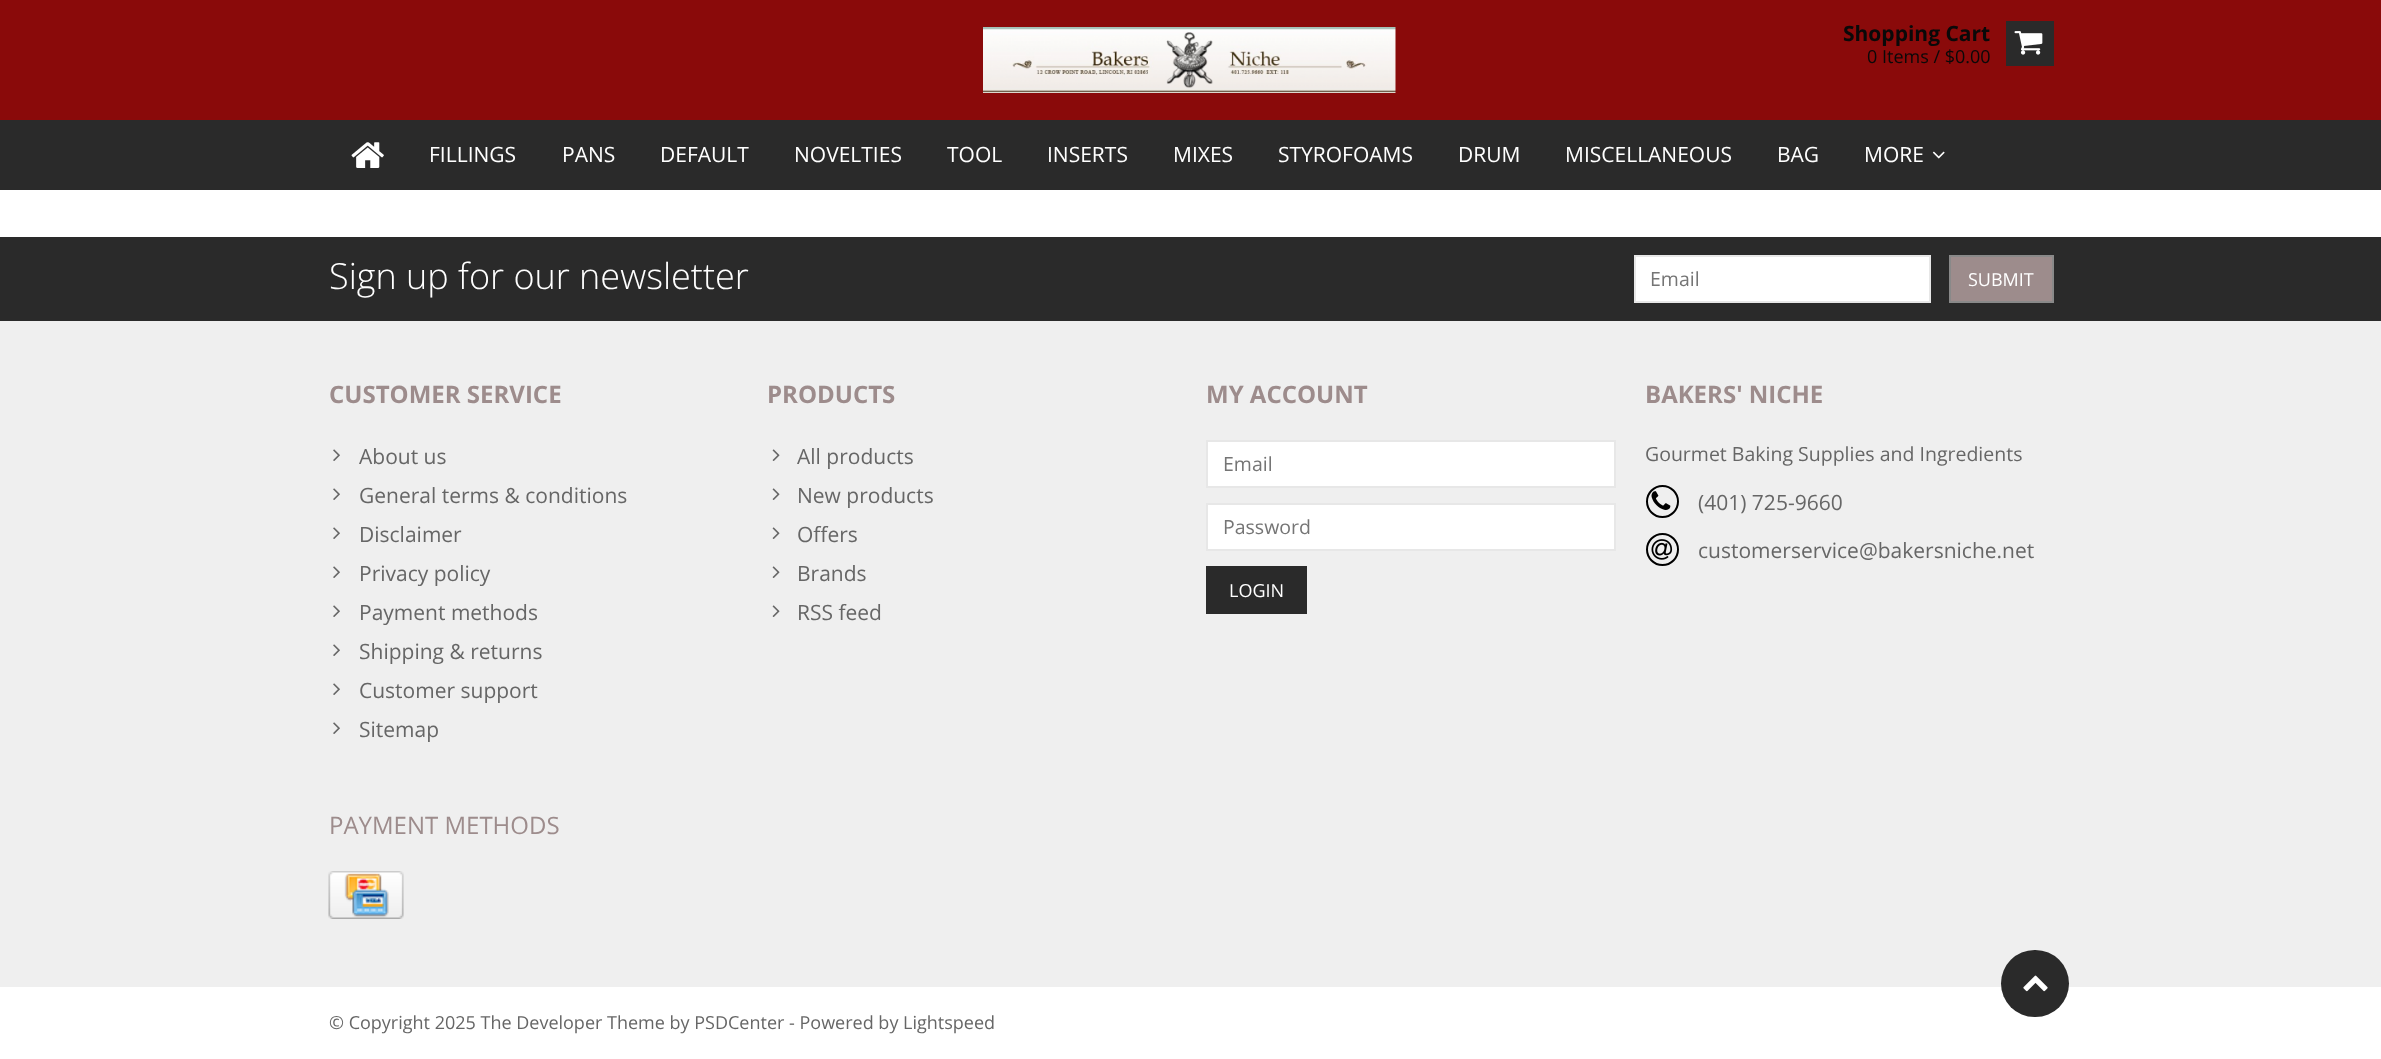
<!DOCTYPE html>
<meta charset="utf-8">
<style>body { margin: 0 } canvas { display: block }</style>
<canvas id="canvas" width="2381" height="1059"></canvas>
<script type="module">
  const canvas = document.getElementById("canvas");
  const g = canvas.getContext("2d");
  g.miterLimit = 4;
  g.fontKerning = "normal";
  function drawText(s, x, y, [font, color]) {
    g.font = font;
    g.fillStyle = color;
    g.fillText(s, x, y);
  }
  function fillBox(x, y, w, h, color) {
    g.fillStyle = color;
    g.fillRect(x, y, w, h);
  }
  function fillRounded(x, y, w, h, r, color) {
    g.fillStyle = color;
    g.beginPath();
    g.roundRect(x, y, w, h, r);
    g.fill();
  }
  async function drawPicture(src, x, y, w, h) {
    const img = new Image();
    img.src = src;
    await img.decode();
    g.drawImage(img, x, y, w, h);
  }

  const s1 = ["bold 21px Open Sans", "#090909"];
  const s2 = ["18px Open Sans", "#090909"];
  const s3 = ["21px Open Sans", "#FFFFFF"];
  const s4 = ["300 36px Open Sans", "#FFFFFF"];
  const s5 = ["19.5px Open Sans", "#757575"];
  const s6 = ["18px Open Sans", "#FFFFFF"];
  const s7 = ["bold 24px Open Sans", "#9D8C8C"];
  const s8 = ["21px Open Sans", "#666666"];
  const s9 = ["19.5px Open Sans", "#666666"];
  const s10 = ["24px Open Sans", "#9D8C8C"];
  const s11 = ["18px Open Sans", "#666666"];

  fillBox(0, 0, 2381, 1059, "#FFFFFF");
  fillBox(0, 0, 2381, 120, "#8A0A0A");
  await drawPicture("pic1.png", 983, 27, 413, 66);
  drawText("Shopping Cart", 1843, 41, s1);
  drawText("0 Items / $0.00", 1867, 63, s2);
  fillBox(2006, 21, 48, 45, "#2A2A2A");
  await drawPicture("pic2.png", 2014, 31, 29, 24);
  fillBox(0, 120, 2381, 70, "#2A2A2A");
  await drawPicture("pic3.png", 351, 142, 33, 26);
  drawText("FILLINGS", 429, 162, s3);
  drawText("PANS", 562, 162, s3);
  drawText("DEFAULT", 660, 162, s3);
  drawText("NOVELTIES", 794, 162, s3);
  drawText("TOOL", 947, 162, s3);
  drawText("INSERTS", 1047, 162, s3);
  drawText("MIXES", 1173, 162, s3);
  drawText("STYROFOAMS", 1278, 162, s3);
  drawText("DRUM", 1458, 162, s3);
  drawText("MISCELLANEOUS", 1565, 162, s3);
  drawText("BAG", 1777, 162, s3);
  drawText("MORE", 1864, 162, s3);
  await drawPicture("pic4.png", 1932, 151, 13, 8);
  fillBox(0, 321, 2381, 666, "#EFEFEF");
  fillBox(0, 237, 2381, 84, "#2A2A2A");
  drawText("Sign up for our newsletter", 329, 289, s4);
  g.beginPath();
  g.rect(1635, 256, 295, 46);
  g.fill();
  g.strokeStyle = "#E7E7E7";
  g.lineWidth = 2;
  g.stroke();
  drawText("Email", 1650, 286, s5);
  g.fillStyle = "#9D8C8C";
  g.beginPath();
  g.rect(1950, 256, 103, 46);
  g.fill();
  g.strokeStyle = "#898989";
  g.stroke();
  drawText("SUBMIT", 1968, 286, s6);
  drawText("CUSTOMER SERVICE", 329, 403, s7);
  await drawPicture("pic5.png", 333, 449, 7, 12);
  drawText("About us", 359, 464, s8);
  await drawPicture("pic5.png", 333, 488, 7, 12);
  drawText("General terms & conditions", 359, 503, s8);
  await drawPicture("pic5.png", 333, 527, 7, 12);
  drawText("Disclaimer", 359, 542, s8);
  await drawPicture("pic5.png", 333, 566, 7, 12);
  drawText("Privacy policy", 359, 581, s8);
  await drawPicture("pic5.png", 333, 605, 7, 12);
  drawText("Payment methods", 359, 620, s8);
  await drawPicture("pic5.png", 333, 644, 7, 12);
  drawText("Shipping & returns", 359, 659, s8);
  await drawPicture("pic5.png", 333, 683, 7, 12);
  drawText("Customer support", 359, 698, s8);
  await drawPicture("pic5.png", 333, 722, 7, 12);
  drawText("Sitemap", 359, 737, s8);
  drawText("PRODUCTS", 767, 403, s7);
  await drawPicture("pic6.png", 772, 449, 8, 12);
  drawText("All products", 797, 464, s8);
  await drawPicture("pic6.png", 772, 488, 8, 12);
  drawText("New products", 797, 503, s8);
  await drawPicture("pic6.png", 772, 527, 8, 12);
  drawText("Offers", 797, 542, s8);
  await drawPicture("pic6.png", 772, 566, 8, 12);
  drawText("Brands", 797, 581, s8);
  await drawPicture("pic6.png", 772, 605, 8, 12);
  drawText("RSS feed", 797, 620, s8);
  drawText("MY ACCOUNT", 1206, 403, s7);
  g.fillStyle = "#FFFFFF";
  g.beginPath();
  g.rect(1207, 441, 408, 46);
  g.fill();
  g.strokeStyle = "#E7E7E7";
  g.stroke();
  drawText("Email", 1223, 471, s5);
  g.fillStyle = "#FFFFFF";
  g.beginPath();
  g.rect(1207, 504, 408, 46);
  g.fill();
  g.stroke();
  drawText("Password", 1223, 534, s5);
  fillBox(1206, 566, 101, 48, "#2A2A2A");
  drawText("LOGIN", 1229, 597, s6);
  drawText("BAKERS' NICHE", 1645, 403, s7);
  drawText("Gourmet Baking Supplies and Ingredients", 1645, 461, s9);
  g.beginPath();
  g.arc(1662.5, 501.5, 15.5, 0, Math.PI * 2);
  g.strokeStyle = "#000000";
  g.stroke();
  await drawPicture("pic7.png", 1651, 491, 20, 19);
  drawText("(401) 725-9660", 1698, 510, s8);
  g.beginPath();
  g.arc(1662.5, 549.5, 15.5, 0, Math.PI * 2);
  g.stroke();
  await drawPicture("pic8.png", 1651, 539, 22, 21);
  drawText("customerservice@bakersniche.net", 1698, 558, s8);
  drawText("PAYMENT METHODS", 329, 834, s10);
  await drawPicture("pic9.png", 328, 871, 76, 48);
  fillRounded(2001, 950, 68, 67, 33.5, "#2A2A2A");
  await drawPicture("pic10.png", 2023, 975, 25, 17);
  drawText("© Copyright 2025 The Developer Theme by PSDCenter - Powered by Lightspeed", 329, 1029, s11);
</script>
